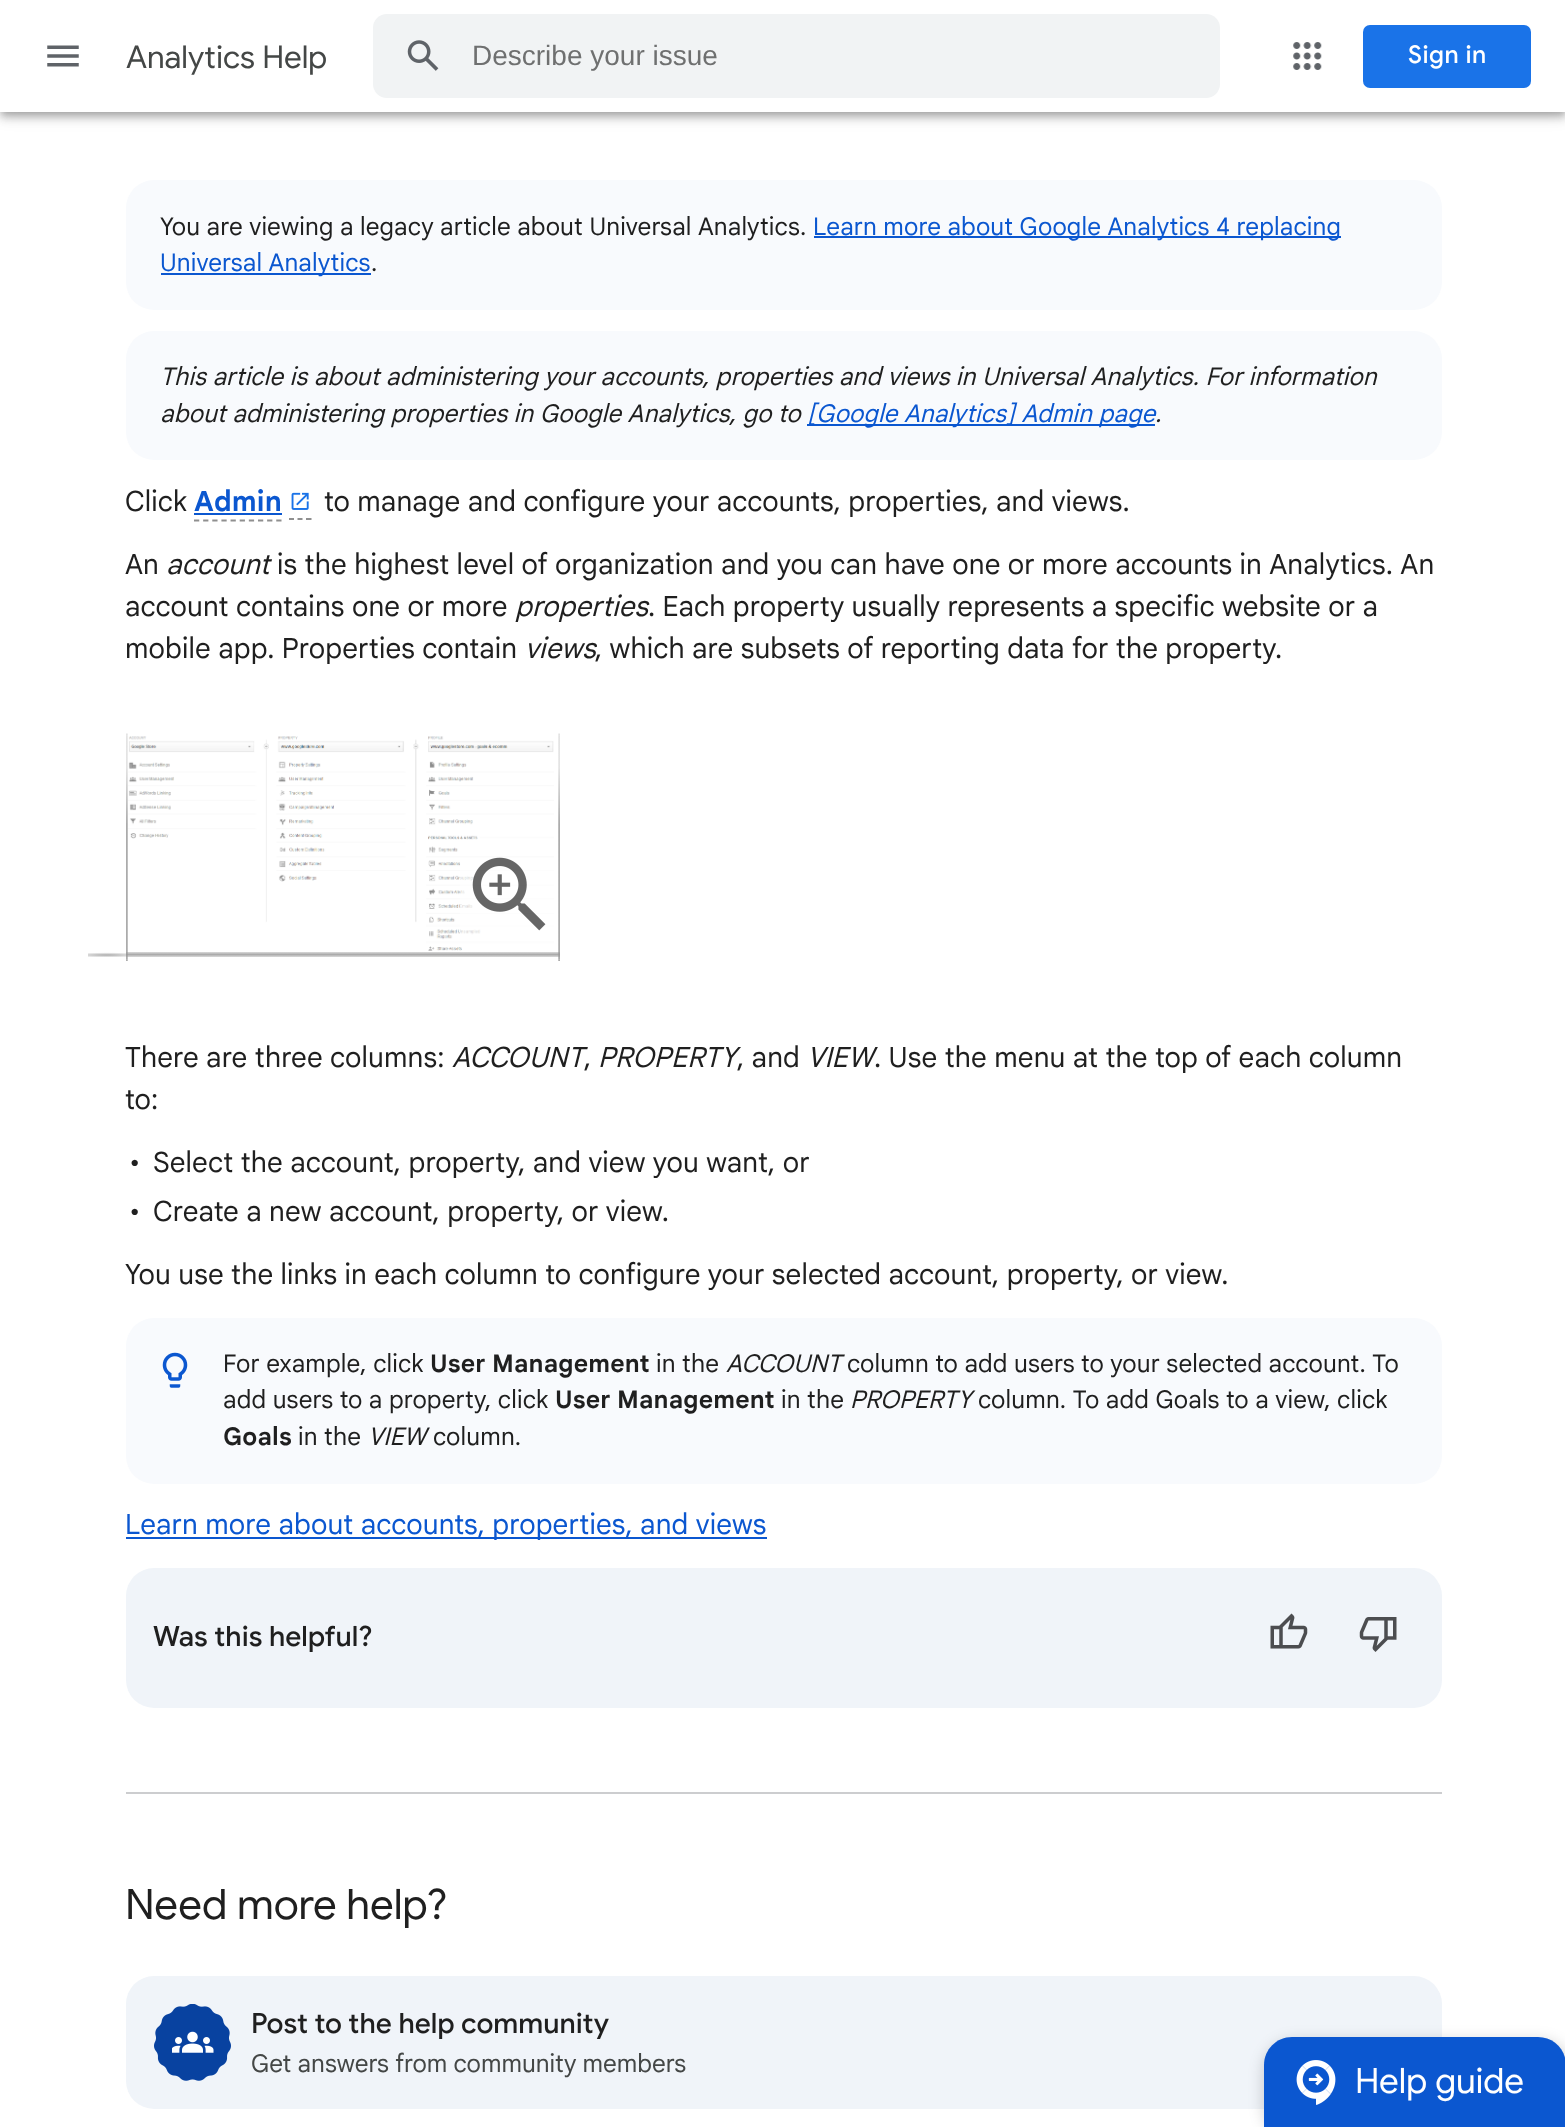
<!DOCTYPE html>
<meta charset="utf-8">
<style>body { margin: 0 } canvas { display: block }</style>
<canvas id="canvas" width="1565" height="2127"></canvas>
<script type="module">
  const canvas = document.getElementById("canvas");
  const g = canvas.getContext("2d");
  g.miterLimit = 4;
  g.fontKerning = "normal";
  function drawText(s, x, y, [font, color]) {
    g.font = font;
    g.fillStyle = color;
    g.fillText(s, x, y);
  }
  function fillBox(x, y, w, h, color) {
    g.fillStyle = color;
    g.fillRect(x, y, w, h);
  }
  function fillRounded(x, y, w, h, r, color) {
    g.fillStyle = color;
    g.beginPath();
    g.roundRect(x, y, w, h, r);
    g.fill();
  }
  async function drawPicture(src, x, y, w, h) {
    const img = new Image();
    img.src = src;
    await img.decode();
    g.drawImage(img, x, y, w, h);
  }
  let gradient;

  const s1 = ["31.5px Google Sans", "#444746"];
  const s2 = ["28px Liberation Sans", "#6F7070"];
  const s3 = ["500 24.5px Google Sans", "#FFFFFF"];
  const s4 = ["24.5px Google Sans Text", "#1F1F1F"];
  const s5 = ["24.5px Google Sans Text", "#0B57D0"];
  const s6 = ["italic 24.5px Google Sans Text", "#1F1F1F"];
  const s7 = ["italic 24.5px Google Sans Text", "#0B57D0"];
  const s8 = ["28px Google Sans Text", "#1F1F1F"];
  const s9 = ["bold 28px Google Sans Text", "#0B57D0"];
  const s10 = ["italic 28px Google Sans Text", "#1F1F1F"];
  const s11 = ["bold 24.5px Google Sans Text", "#1F1F1F"];
  const s12 = ["28px Google Sans Text", "#0B57D0"];
  const s13 = ["500 28px Google Sans", "#1F1F1F"];
  const s14 = ["42px Google Sans", "#1F1F1F"];
  const s15 = ["24.5px Google Sans Text", "#444746"];
  const s16 = ["35px Google Sans", "#FFFFFF"];

  fillBox(0, 0, 1565, 2127, "#FFFFFF");
  g.fillStyle = "rgba(0, 0, 0, 0.2)";
  g.filter = "blur(3.5px)";
  g.beginPath();
  g.rect(2, 5, 1563, 109);
  g.fill();
  g.filter = "none";
  g.fillStyle = "rgba(0, 0, 0, 0.12)";
  g.filter = "blur(9px)";
  g.beginPath();
  g.rect(0, 2, 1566, 112);
  g.fill();
  g.filter = "none";
  g.fillStyle = "rgba(0, 0, 0, 0.14)";
  g.filter = "blur(4.5px)";
  g.beginPath();
  g.rect(0, 7, 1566, 112);
  g.fill();
  g.filter = "none";
  fillBox(0, 0, 1565, 112, "#FFFFFF");
  await drawPicture("pic1.png", 47, 45, 32, 22);
  drawText("Analytics Help", 126, 68, s1);
  fillRounded(373, 14, 847, 84, 14, "#F1F3F4");
  await drawPicture("pic2.png", 407, 40, 32, 31);
  drawText("Describe your issue", 472, 65, s2);
  await drawPicture("pic3.png", 1293, 42, 29, 28);
  fillRounded(1363, 25, 168, 63, 7, "#1A73E8");
  g.letterSpacing = "0.5px";
  drawText("Sign in", 1408, 63, s3);
  fillRounded(126, 180, 1316, 130, 28, "#F8FAFD");
  g.letterSpacing = "0.14px";
  drawText("You are viewing a legacy article about Universal Analytics.", 160, 235, s4);
  fillBox(814, 236, 527, 2, "#0B57D0");
  drawText("Learn more about Google Analytics 4 replacing", 813, 235, s5);
  fillBox(161, 273, 210, 2, "#0B57D0");
  drawText("Universal Analytics", 160, 271, s5);
  drawText(".", 371, 271, s4);
  fillRounded(126, 331, 1316, 129, 28, "#F8FAFD");
  drawText("This article is about administering your accounts, properties and views in Universal Analytics. For information", 160, 385, s6);
  drawText("about administering properties in Google Analytics, go to", 160, 422, s6);
  fillBox(807, 424, 348, 2, "#0B57D0");
  drawText("[Google Analytics] Admin page", 807, 422, s7);
  drawText(".", 1155, 422, s6);
  drawText("Click", 125, 511, s8);
  g.beginPath();
  g.moveTo(194, 520.5);
  g.lineTo(282, 520.5);
  g.strokeStyle = "#8F8F8F";
  g.lineWidth = 1.8;
  g.setLineDash([5.25, 3.89]);
  g.stroke();
  g.beginPath();
  g.moveTo(289, 519);
  g.lineTo(294, 519);
  g.moveTo(297.5, 519);
  g.lineTo(302.5, 519);
  g.moveTo(306, 519);
  g.lineTo(311.5, 519);
  g.setLineDash([]);
  g.stroke();
  drawText("Admin", 194, 511, s9);
  fillBox(194, 513, 88, 2, "#0B57D0");
  await drawPicture("pic4.png", 291, 492, 18, 18);
  drawText("to manage and configure your accounts, properties, and views.", 324, 511, s8);
  drawText("An", 125, 574, s8);
  drawText("account", 166, 574, s10);
  drawText("is the highest level of organization and you can have one or more accounts in Analytics. An", 277, 574, s8);
  drawText("account contains one or more", 125, 616, s8);
  drawText("properties", 515, 616, s10);
  drawText(". Each property usually represents a specific website or a", 648, 616, s8);
  drawText("mobile app. Properties contain", 125, 658, s8);
  drawText("views", 525, 658, s10);
  drawText(", which are subsets of reporting data for the property.", 595, 658, s8);
  await drawPicture("pic6.png", 128, 736, 426, 215);
  fillBox(460, 864, 94, 70, "rgba(255, 255, 255, 0.6)");
  await drawPicture("pic7.png", 472, 857, 74, 74);
  gradient = g.createLinearGradient(342, 959, 342, 950);
  gradient.addColorStop(0, "#FFFFFF");
  gradient.addColorStop(0.5, "#ABABAB");
  gradient.addColorStop(1, "#FFFFFF");
  g.fillStyle = gradient;
  g.fillRect(126, 952, 434, 5);
  await drawPicture("pic5.png", 126, 733, 434, 228);
  gradient = g.createRadialGradient(107, 14325, 0, 107, 14325, 39);
  gradient.addColorStop(0, "#ABABAB");
  gradient.addColorStop(1, "#FFFFFF");
  g.fillStyle = gradient;
  g.beginPath();
  g.rect(88, 952, 38, 5);
  g.save();
  g.clip();
  g.scale(1, 2.6 / 39);
  g.fillRect(0, 0, 1565, 31905);
  g.restore();
  drawText("There are three columns:", 125, 1067, s8);
  drawText("ACCOUNT", 452, 1067, s10);
  drawText("PROPERTY", 598, 1067, s10);
  drawText(", and", 737, 1067, s8);
  drawText("VIEW", 807, 1067, s10);
  drawText(". Use the menu at the top of each column", 874, 1067, s8);
  drawText(",", 584, 1067, s8);
  drawText("to:", 125, 1109, s8);
  drawText("•", 129, 1172, s8);
  drawText("Select the account, property, and view you want, or", 153, 1172, s8);
  drawText("•", 129, 1221, s8);
  drawText("Create a new account, property, or view.", 153, 1221, s8);
  drawText("You use the links in each column to configure your selected account, property, or view.", 125, 1284, s8);
  fillRounded(126, 1318, 1316, 166, 28, "#F8FAFD");
  await drawPicture("pic8.png", 162, 1352, 26, 36);
  drawText("For example, click", 223, 1372, s4);
  drawText("User Management", 430, 1372, s11);
  drawText("in the", 656, 1372, s4);
  drawText("ACCOUNT", 726, 1372, s6);
  drawText("column to add users to your selected account. To", 847, 1372, s4);
  drawText("add users to a property, click", 223, 1408, s4);
  drawText("User Management", 555, 1408, s11);
  drawText("in the", 781, 1408, s4);
  drawText("PROPERTY", 850, 1408, s6);
  drawText("column. To add Goals to a view, click", 978, 1408, s4);
  drawText("Goals", 223, 1445, s11);
  drawText("in the", 298, 1445, s4);
  drawText("VIEW", 368, 1445, s6);
  drawText("column.", 433, 1445, s4);
  fillBox(126, 1537, 641, 2, "#0B57D0");
  drawText("Learn more about accounts, properties, and views", 125, 1534, s12);
  fillRounded(126, 1568, 1316, 140, 28, "#F0F4F9");
  g.letterSpacing = "0px";
  drawText("Was this helpful?", 153, 1646, s13);
  await drawPicture("pic9.png", 1270, 1613, 38, 36);
  await drawPicture("pic10.png", 1359, 1617, 38, 35);
  fillBox(126, 1792, 1316, 2, "#CCCDCF");
  drawText("Need more help?", 125, 1919, s14);
  fillRounded(126, 1976, 1316, 133, 28, "#F0F4F9");
  await drawPicture("pic11.png", 154, 2004, 77, 77);
  await drawPicture("pic12.png", 172, 2031, 42, 22);
  drawText("Post to the help community", 251, 2033, s13);
  drawText("Get answers from community members", 251, 2072, s15);
  g.fillStyle = "rgba(0, 0, 0, 0.15)";
  g.filter = "blur(7px)";
  g.beginPath();
  g.roundRect(1262, 2039, 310, 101, 33);
  g.fill();
  g.filter = "none";
  g.fillStyle = "#0B57D0";
  g.beginPath();
  g.moveTo(1292, 2037);
  g.lineTo(1538, 2037);
  g.bezierCurveTo(1553.5, 2037, 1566, 2049.5, 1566, 2065);
  g.lineTo(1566, 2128);
  g.lineTo(1264, 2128);
  g.lineTo(1264, 2065);
  g.bezierCurveTo(1264, 2049.5, 1276.5, 2037, 1292, 2037);
  g.closePath();
  g.fill();
  await drawPicture("pic13.png", 1296, 2060, 40, 45);
  drawText("Help guide", 1355, 2093, s16);
</script>
